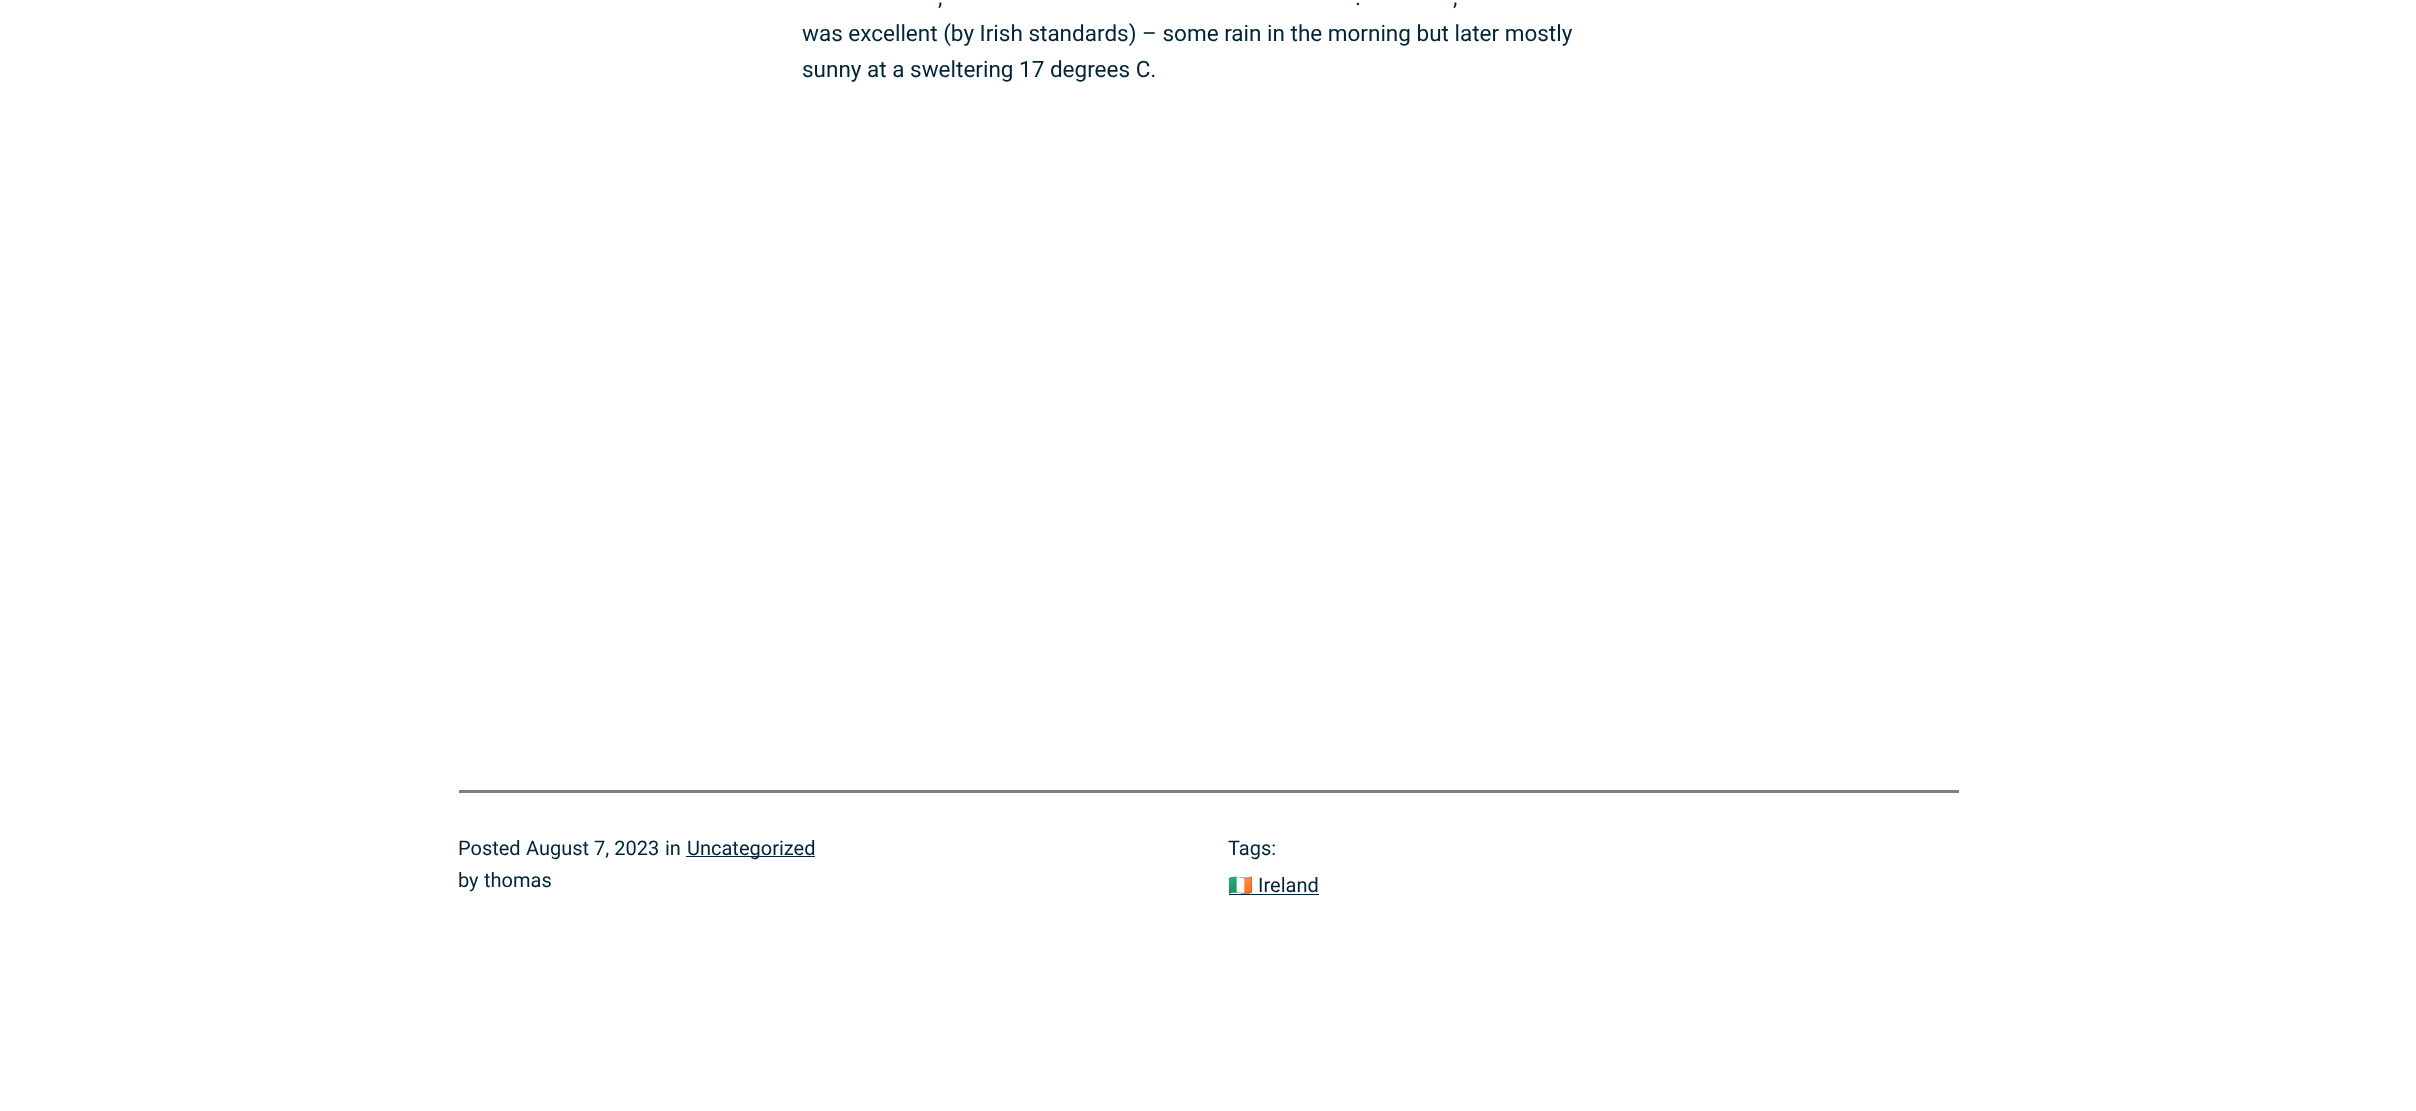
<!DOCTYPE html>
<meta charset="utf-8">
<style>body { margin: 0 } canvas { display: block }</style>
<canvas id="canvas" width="2416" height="1111"></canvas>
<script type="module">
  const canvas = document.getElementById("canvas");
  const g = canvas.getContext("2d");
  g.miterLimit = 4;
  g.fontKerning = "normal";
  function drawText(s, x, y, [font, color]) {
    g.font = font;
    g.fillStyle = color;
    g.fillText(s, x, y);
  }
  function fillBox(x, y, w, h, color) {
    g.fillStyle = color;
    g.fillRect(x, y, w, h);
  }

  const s1 = ["22.5px Roboto", "#012437"];
  const s2 = ["20px Roboto", "#012437"];
  const s3 = ["20px Noto Color Emoji", "#012437"];

  fillBox(0, 0, 2416, 1111, "#FFFFFF");
  drawText(",", 938, 5, s1);
  drawText(".", 1355, 5, s1);
  drawText(",", 1453, 5, s1);
  drawText("was excellent (by Irish standards) – some rain in the morning but later mostly", 802, 41, s1);
  drawText("sunny at a sweltering 17 degrees C.", 802, 77, s1);
  fillBox(459, 790, 1500, 3, "#808080");
  drawText("Posted", 458, 855, s2);
  drawText("August 7, 2023", 526, 855, s2);
  drawText("in", 665, 855, s2);
  fillBox(686, 856, 129, 1, "#012437");
  drawText("Uncategorized", 687, 855, s2);
  drawText("by", 458, 887, s2);
  drawText("thomas", 484, 887, s2);
  drawText("Tags:", 1228, 855, s2);
  fillBox(1229, 894, 90, 1, "#012437");
  drawText("🇮🇪", 1228, 892, s3);
  drawText("Ireland", 1258, 892, s2);
</script>
